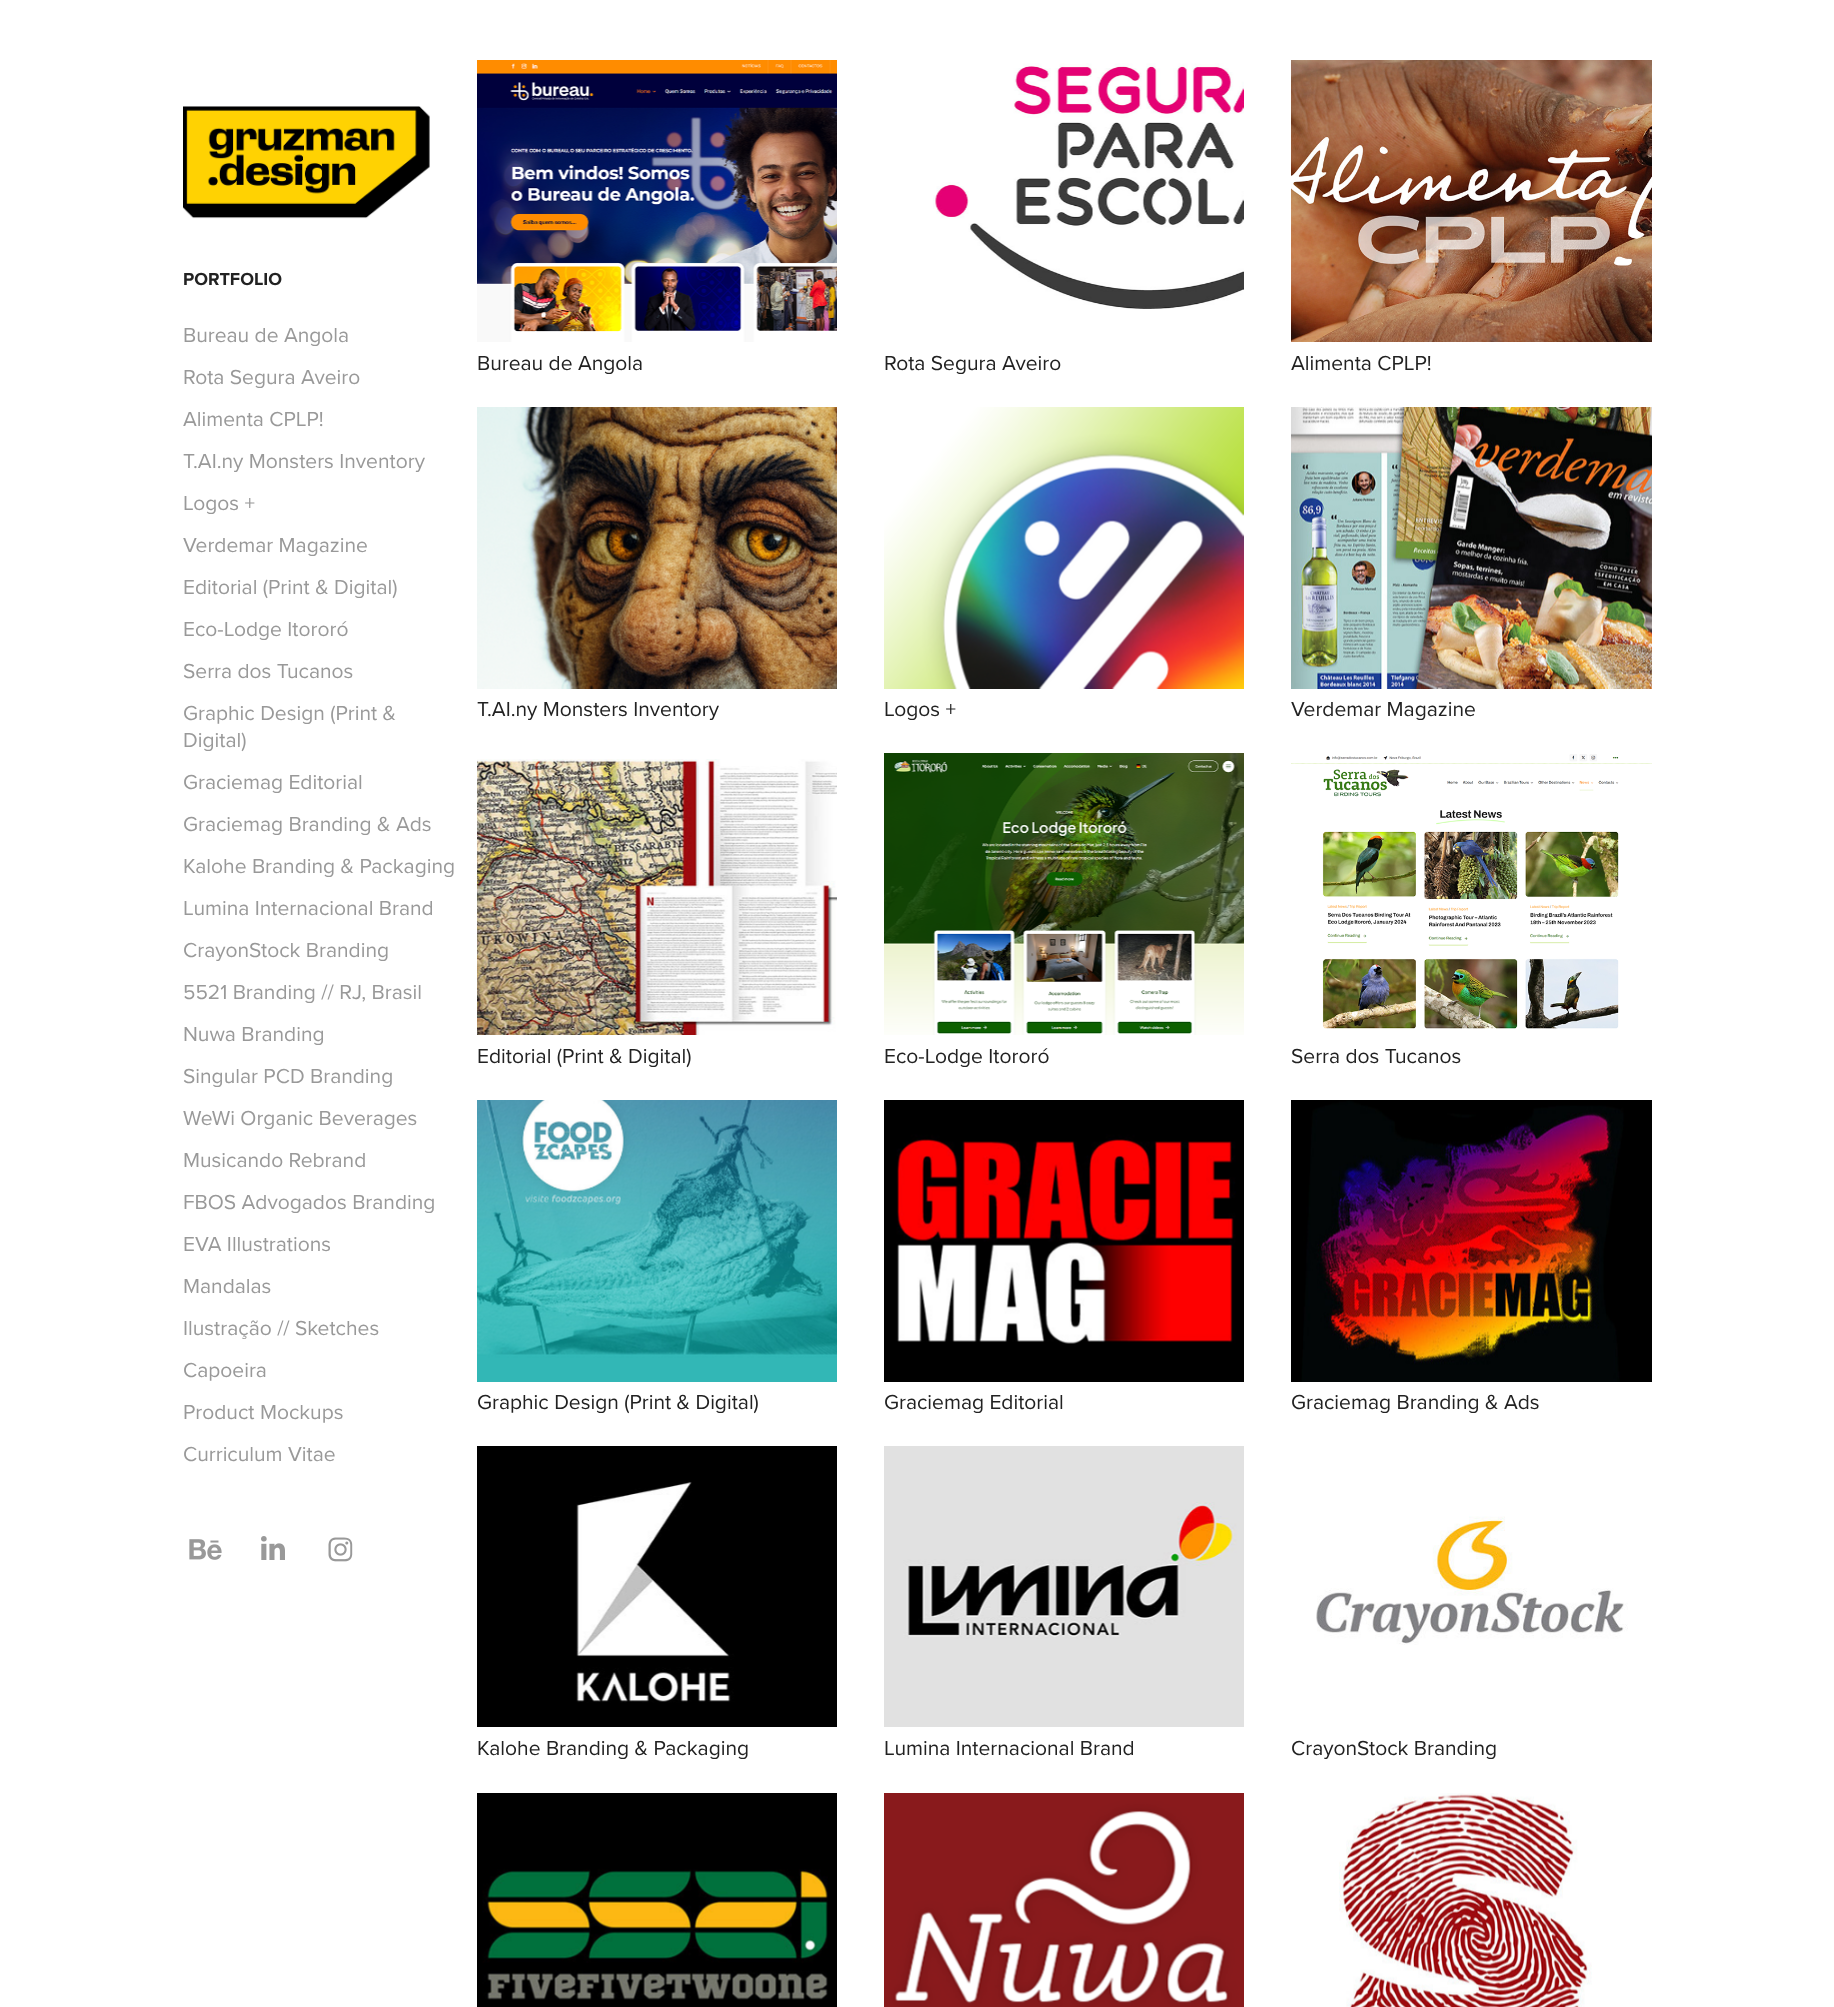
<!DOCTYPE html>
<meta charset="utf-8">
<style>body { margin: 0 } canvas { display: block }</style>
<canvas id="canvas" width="1834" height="2007"></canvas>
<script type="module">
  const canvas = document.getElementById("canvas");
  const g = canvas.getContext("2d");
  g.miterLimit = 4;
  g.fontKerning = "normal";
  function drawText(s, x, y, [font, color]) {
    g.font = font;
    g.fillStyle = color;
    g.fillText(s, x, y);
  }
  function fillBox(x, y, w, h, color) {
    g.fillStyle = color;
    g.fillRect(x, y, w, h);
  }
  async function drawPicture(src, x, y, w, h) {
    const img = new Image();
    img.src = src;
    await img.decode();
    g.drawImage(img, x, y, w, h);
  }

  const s1 = ["bold 18px Proxima Nova", "#222222"];
  const s2 = ["21px Proxima Nova", "#999999"];
  const s3 = ["21px Proxima Nova", "#222222"];

  fillBox(0, 0, 1834, 2007, "#FFFFFF");
  await drawPicture("pic1.png", 183, 106, 247, 113);
  drawText("PORTFOLIO", 183, 285, s1);
  drawText("Bureau de Angola", 183, 342, s2);
  drawText("Rota Segura Aveiro", 183, 384, s2);
  drawText("Alimenta CPLP!", 183, 426, s2);
  drawText("T.AI.ny Monsters Inventory", 183, 468, s2);
  drawText("Logos +", 183, 510, s2);
  drawText("Verdemar Magazine", 183, 552, s2);
  drawText("Editorial (Print & Digital)", 183, 594, s2);
  drawText("Eco-Lodge Itororó", 183, 636, s2);
  drawText("Serra dos Tucanos", 183, 678, s2);
  drawText("Graphic Design (Print &", 183, 720, s2);
  drawText("Digital)", 183, 747, s2);
  drawText("Graciemag Editorial", 183, 789, s2);
  drawText("Graciemag Branding & Ads", 183, 831, s2);
  drawText("Kalohe Branding & Packaging", 183, 873, s2);
  drawText("Lumina Internacional Brand", 183, 915, s2);
  drawText("CrayonStock Branding", 183, 957, s2);
  drawText("5521 Branding // RJ, Brasil", 183, 999, s2);
  drawText("Nuwa Branding", 183, 1041, s2);
  drawText("Singular PCD Branding", 183, 1083, s2);
  drawText("WeWi Organic Beverages", 183, 1125, s2);
  drawText("Musicando Rebrand", 183, 1167, s2);
  drawText("FBOS Advogados Branding", 183, 1209, s2);
  drawText("EVA Illustrations", 183, 1251, s2);
  drawText("Mandalas", 183, 1293, s2);
  drawText("Ilustração // Sketches", 183, 1335, s2);
  drawText("Capoeira", 183, 1377, s2);
  drawText("Product Mockups", 183, 1419, s2);
  drawText("Curriculum Vitae", 183, 1461, s2);
  await drawPicture("pic2.png", 189, 1539, 33, 21);
  await drawPicture("pic3.png", 261, 1536, 24, 24);
  await drawPicture("pic4.png", 328, 1537, 25, 25);
  await drawPicture("pic5.png", 477, 60, 360, 282);
  drawText("Bureau de Angola", 477, 370, s3);
  await drawPicture("pic6.png", 933, 63, 311, 246);
  drawText("Rota Segura Aveiro", 884, 370, s3);
  await drawPicture("pic7.png", 1291, 60, 361, 282);
  drawText("Alimenta CPLP!", 1291, 370, s3);
  await drawPicture("pic8.png", 477, 407, 360, 282);
  drawText("T.AI.ny Monsters Inventory", 477, 716, s3);
  await drawPicture("pic9.png", 884, 407, 360, 282);
  drawText("Logos +", 884, 716, s3);
  await drawPicture("pic10.png", 1291, 407, 361, 282);
  drawText("Verdemar Magazine", 1291, 716, s3);
  await drawPicture("pic11.png", 477, 759, 360, 276);
  drawText("Editorial (Print & Digital)", 477, 1063, s3);
  await drawPicture("pic12.png", 884, 753, 360, 282);
  drawText("Eco-Lodge Itororó", 884, 1063, s3);
  await drawPicture("pic13.png", 1291, 754, 361, 275);
  drawText("Serra dos Tucanos", 1291, 1063, s3);
  await drawPicture("pic14.png", 477, 1100, 360, 282);
  drawText("Graphic Design (Print & Digital)", 477, 1409, s3);
  await drawPicture("pic15.png", 884, 1100, 360, 282);
  drawText("Graciemag Editorial", 884, 1409, s3);
  await drawPicture("pic16.png", 1291, 1100, 361, 282);
  drawText("Graciemag Branding & Ads", 1291, 1409, s3);
  await drawPicture("pic17.png", 477, 1446, 360, 281);
  drawText("Kalohe Branding & Packaging", 477, 1755, s3);
  await drawPicture("pic18.png", 884, 1446, 360, 281);
  drawText("Lumina Internacional Brand", 884, 1755, s3);
  await drawPicture("pic19.png", 1316, 1516, 312, 129);
  drawText("CrayonStock Branding", 1291, 1755, s3);
  await drawPicture("pic20.png", 477, 1793, 360, 214);
  await drawPicture("pic21.png", 884, 1793, 360, 214);
  await drawPicture("pic22.png", 1339, 1793, 253, 214);
</script>
